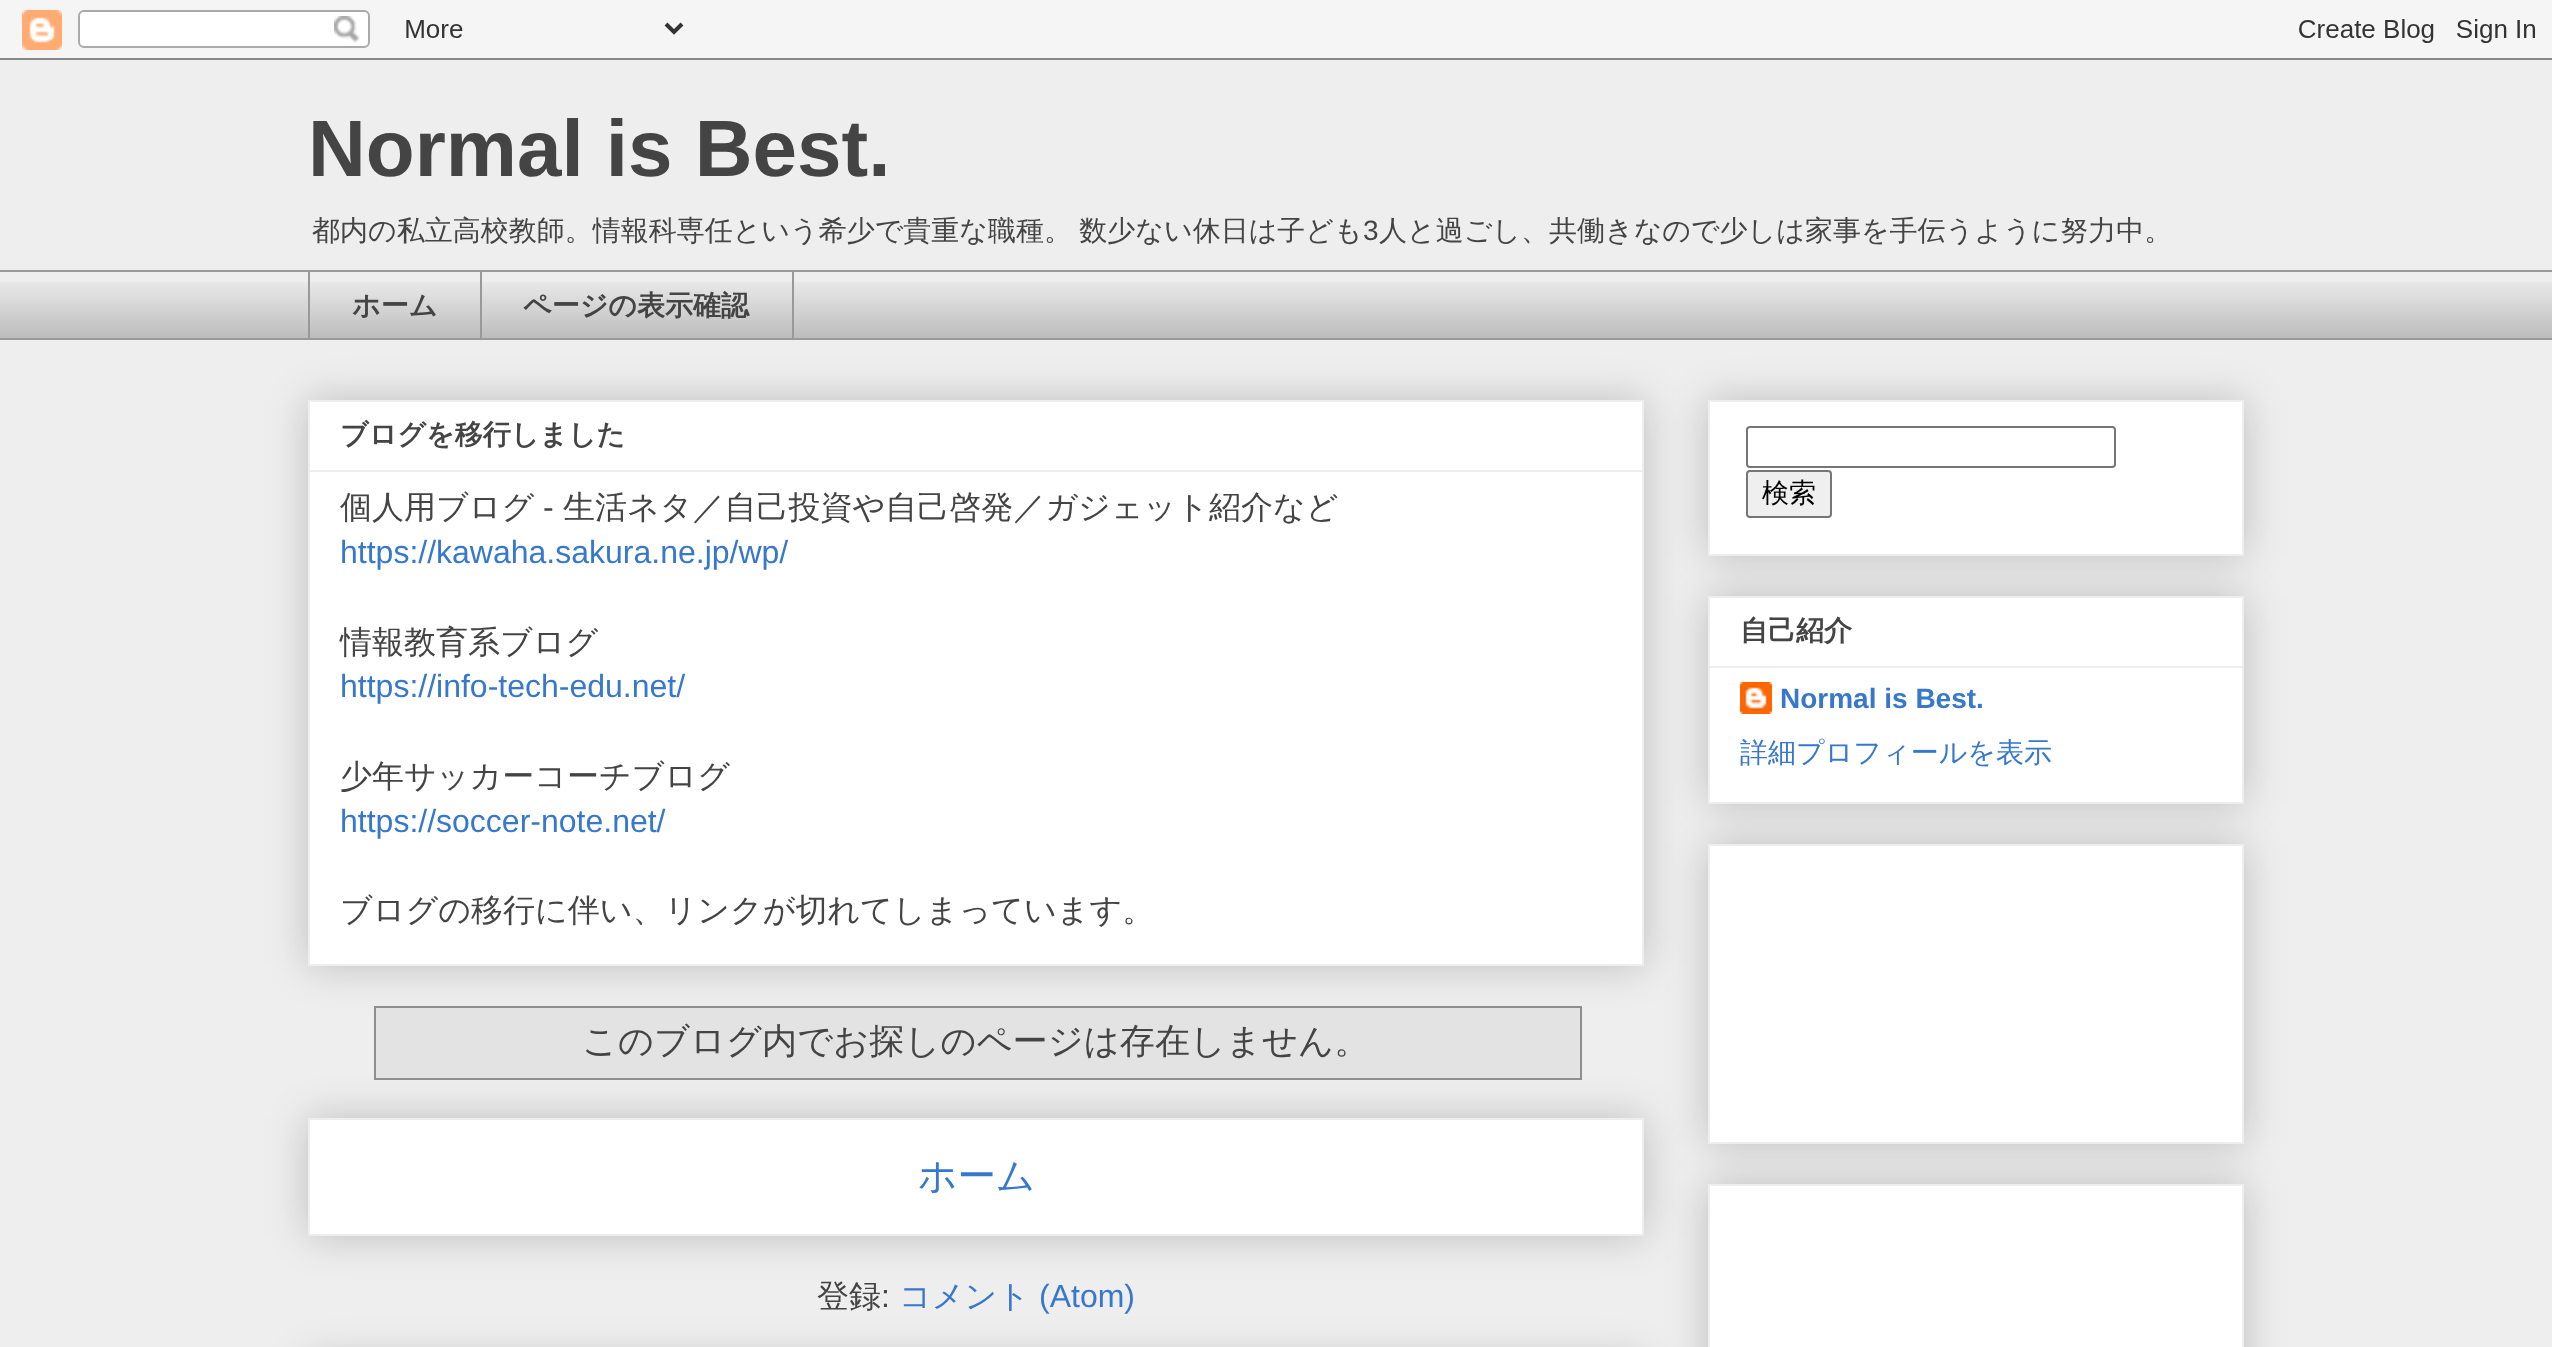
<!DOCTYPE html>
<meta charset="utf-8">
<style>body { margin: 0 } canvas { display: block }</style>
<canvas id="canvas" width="2552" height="1347"></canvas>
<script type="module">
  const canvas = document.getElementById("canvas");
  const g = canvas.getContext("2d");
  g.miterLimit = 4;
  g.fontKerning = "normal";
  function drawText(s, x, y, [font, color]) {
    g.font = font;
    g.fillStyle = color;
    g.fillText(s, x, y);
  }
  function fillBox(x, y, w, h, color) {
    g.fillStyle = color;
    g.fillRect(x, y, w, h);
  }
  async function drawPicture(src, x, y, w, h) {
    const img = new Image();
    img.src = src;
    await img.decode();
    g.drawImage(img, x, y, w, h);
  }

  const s1 = ["bold 80px Liberation Sans", "#444444"];
  const s2 = ["500 28px WenQuanYi Zen Hei", "#444444"];
  const s3 = ["28px Liberation Sans", "#444444"];
  const s4 = ["bold 28px WenQuanYi Zen Hei", "#444444"];
  const s5 = ["500 32px WenQuanYi Zen Hei", "#444444"];
  const s6 = ["32px Liberation Sans", "#444444"];
  const s7 = ["32px Liberation Sans", "#3778CD"];
  const s8 = ["500 35.2px WenQuanYi Zen Hei", "#444444"];
  const s9 = ["500 38.5px WenQuanYi Zen Hei", "#3778CD"];
  const s10 = ["500 32px WenQuanYi Zen Hei", "#3778CD"];
  const s11 = ["500 27px WenQuanYi Zen Hei", "#000000"];
  const s12 = ["bold 28px Liberation Sans", "#3778CD"];
  const s13 = ["500 28px WenQuanYi Zen Hei", "#3778CD"];

  fillBox(0, 0, 2552, 1347, "#EEEEEE");
  await drawPicture("pic1.png", 0, 0, 2552, 60);
  drawText("Normal is Best.", 308, 176, s1);
  g.wordSpacing = "-1px";
  drawText("都内の私立高校教師。情報科専任という希少で貴重な職種。 数少ない休日は子ども", 312, 240, s2);
  g.wordSpacing = "0px";
  drawText("3", 1363, 240, s3);
  drawText("人と過ごし、共働きなので少しは家事を手伝うように努力中。", 1379, 240, s2);
  await drawPicture("pic2.png", 0, 282, 2552, 56);
  fillBox(0, 270, 2552, 2, "#999999");
  fillBox(308, 270, 2, 70, "#999999");
  drawText("ホーム", 352, 315, s4);
  g.strokeStyle = "#999999";
  g.lineWidth = 2;
  g.strokeRect(481, 271, 312, 68);
  drawText("ページの表示確認", 523, 315, s4);
  fillBox(0, 338, 2552, 2, "#999999");
  g.fillStyle = "rgba(0, 0, 0, 0.2)";
  g.filter = "blur(20px)";
  g.beginPath();
  g.rect(308, 400, 1336, 566);
  g.fill();
  g.filter = "none";
  g.fillStyle = "#FFFFFF";
  g.beginPath();
  g.rect(309, 401, 1334, 564);
  g.fill();
  g.strokeStyle = "#EEEEEE";
  g.stroke();
  drawText("ブログを移行しました", 340, 444, s4);
  fillBox(310, 470, 1332, 2, "#EEEEEE");
  drawText("個人用ブログ", 340, 518, s5);
  drawText("-", 543, 518, s6);
  drawText("生活ネタ／自己投資や自己啓発／ガジェット紹介など", 563, 518, s5);
  drawText("https://kawaha.sakura.ne.jp/wp/", 340, 563, s7);
  drawText("情報教育系ブログ", 340, 653, s5);
  drawText("https://info-tech-edu.net/", 340, 697, s7);
  drawText("少年サッカーコーチブログ", 340, 787, s5);
  drawText("https://soccer-note.net/", 340, 832, s7);
  drawText("ブログの移行に伴い、リンクが切れてしまっています。", 340, 921, s5);
  g.fillStyle = "rgba(0, 0, 0, 0.2)";
  g.filter = "blur(20px)";
  g.beginPath();
  g.rect(308, 1118, 1336, 118);
  g.fill();
  g.filter = "none";
  g.strokeStyle = "#8E8E8E";
  g.strokeRect(375, 1007, 1206, 72);
  fillBox(376, 1008, 1204, 70, "#E3E3E3");
  drawText("このブログ内でお探しのページは存在しません。", 582, 1053, s8);
  g.fillStyle = "#FFFFFF";
  g.beginPath();
  g.rect(309, 1119, 1334, 116);
  g.fill();
  g.strokeStyle = "#EEEEEE";
  g.stroke();
  drawText("ホーム", 918, 1189, s9);
  drawText("登録", 817, 1307, s5);
  drawText(":", 881, 1307, s6);
  drawText("コメント", 899, 1307, s10);
  drawText("(Atom)", 1039, 1307, s7);
  g.fillStyle = "rgba(0, 0, 0, 0.2)";
  g.filter = "blur(20px)";
  g.beginPath();
  g.rect(308, 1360, 1336, 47);
  g.fill();
  g.filter = "none";
  g.filter = "blur(20px)";
  g.beginPath();
  g.rect(1708, 400, 536, 156);
  g.fill();
  g.filter = "none";
  g.fillStyle = "#FFFFFF";
  g.beginPath();
  g.rect(1709, 401, 534, 154);
  g.fill();
  g.stroke();
  g.beginPath();
  g.roundRect(1747, 427, 368, 40, 3);
  g.strokeStyle = "#767676";
  g.stroke();
  g.fillStyle = "#EFEFEF";
  g.beginPath();
  g.roundRect(1747, 471, 84, 46, 3);
  g.fill();
  g.stroke();
  drawText("検索", 1762, 502, s11);
  g.fillStyle = "rgba(0, 0, 0, 0.2)";
  g.filter = "blur(20px)";
  g.beginPath();
  g.rect(1708, 596, 536, 208);
  g.fill();
  g.filter = "none";
  g.fillStyle = "#FFFFFF";
  g.beginPath();
  g.rect(1709, 597, 534, 206);
  g.fill();
  g.strokeStyle = "#EEEEEE";
  g.stroke();
  drawText("自己紹介", 1740, 640, s4);
  fillBox(1710, 666, 532, 2, "#EEEEEE");
  await drawPicture("pic3.png", 1740, 682, 32, 32);
  drawText("Normal is Best.", 1780, 708, s12);
  drawText("詳細プロフィールを表示", 1740, 762, s13);
  g.fillStyle = "rgba(0, 0, 0, 0.2)";
  g.filter = "blur(20px)";
  g.beginPath();
  g.rect(1708, 844, 536, 300);
  g.fill();
  g.filter = "none";
  g.fillStyle = "#FFFFFF";
  g.beginPath();
  g.rect(1709, 845, 534, 298);
  g.fill();
  g.stroke();
  g.fillStyle = "rgba(0, 0, 0, 0.2)";
  g.filter = "blur(20px)";
  g.beginPath();
  g.rect(1708, 1184, 536, 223);
  g.fill();
  g.filter = "none";
  g.fillStyle = "#FFFFFF";
  g.beginPath();
  g.rect(1709, 1185, 534, 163);
  g.fill();
  g.stroke();
</script>
